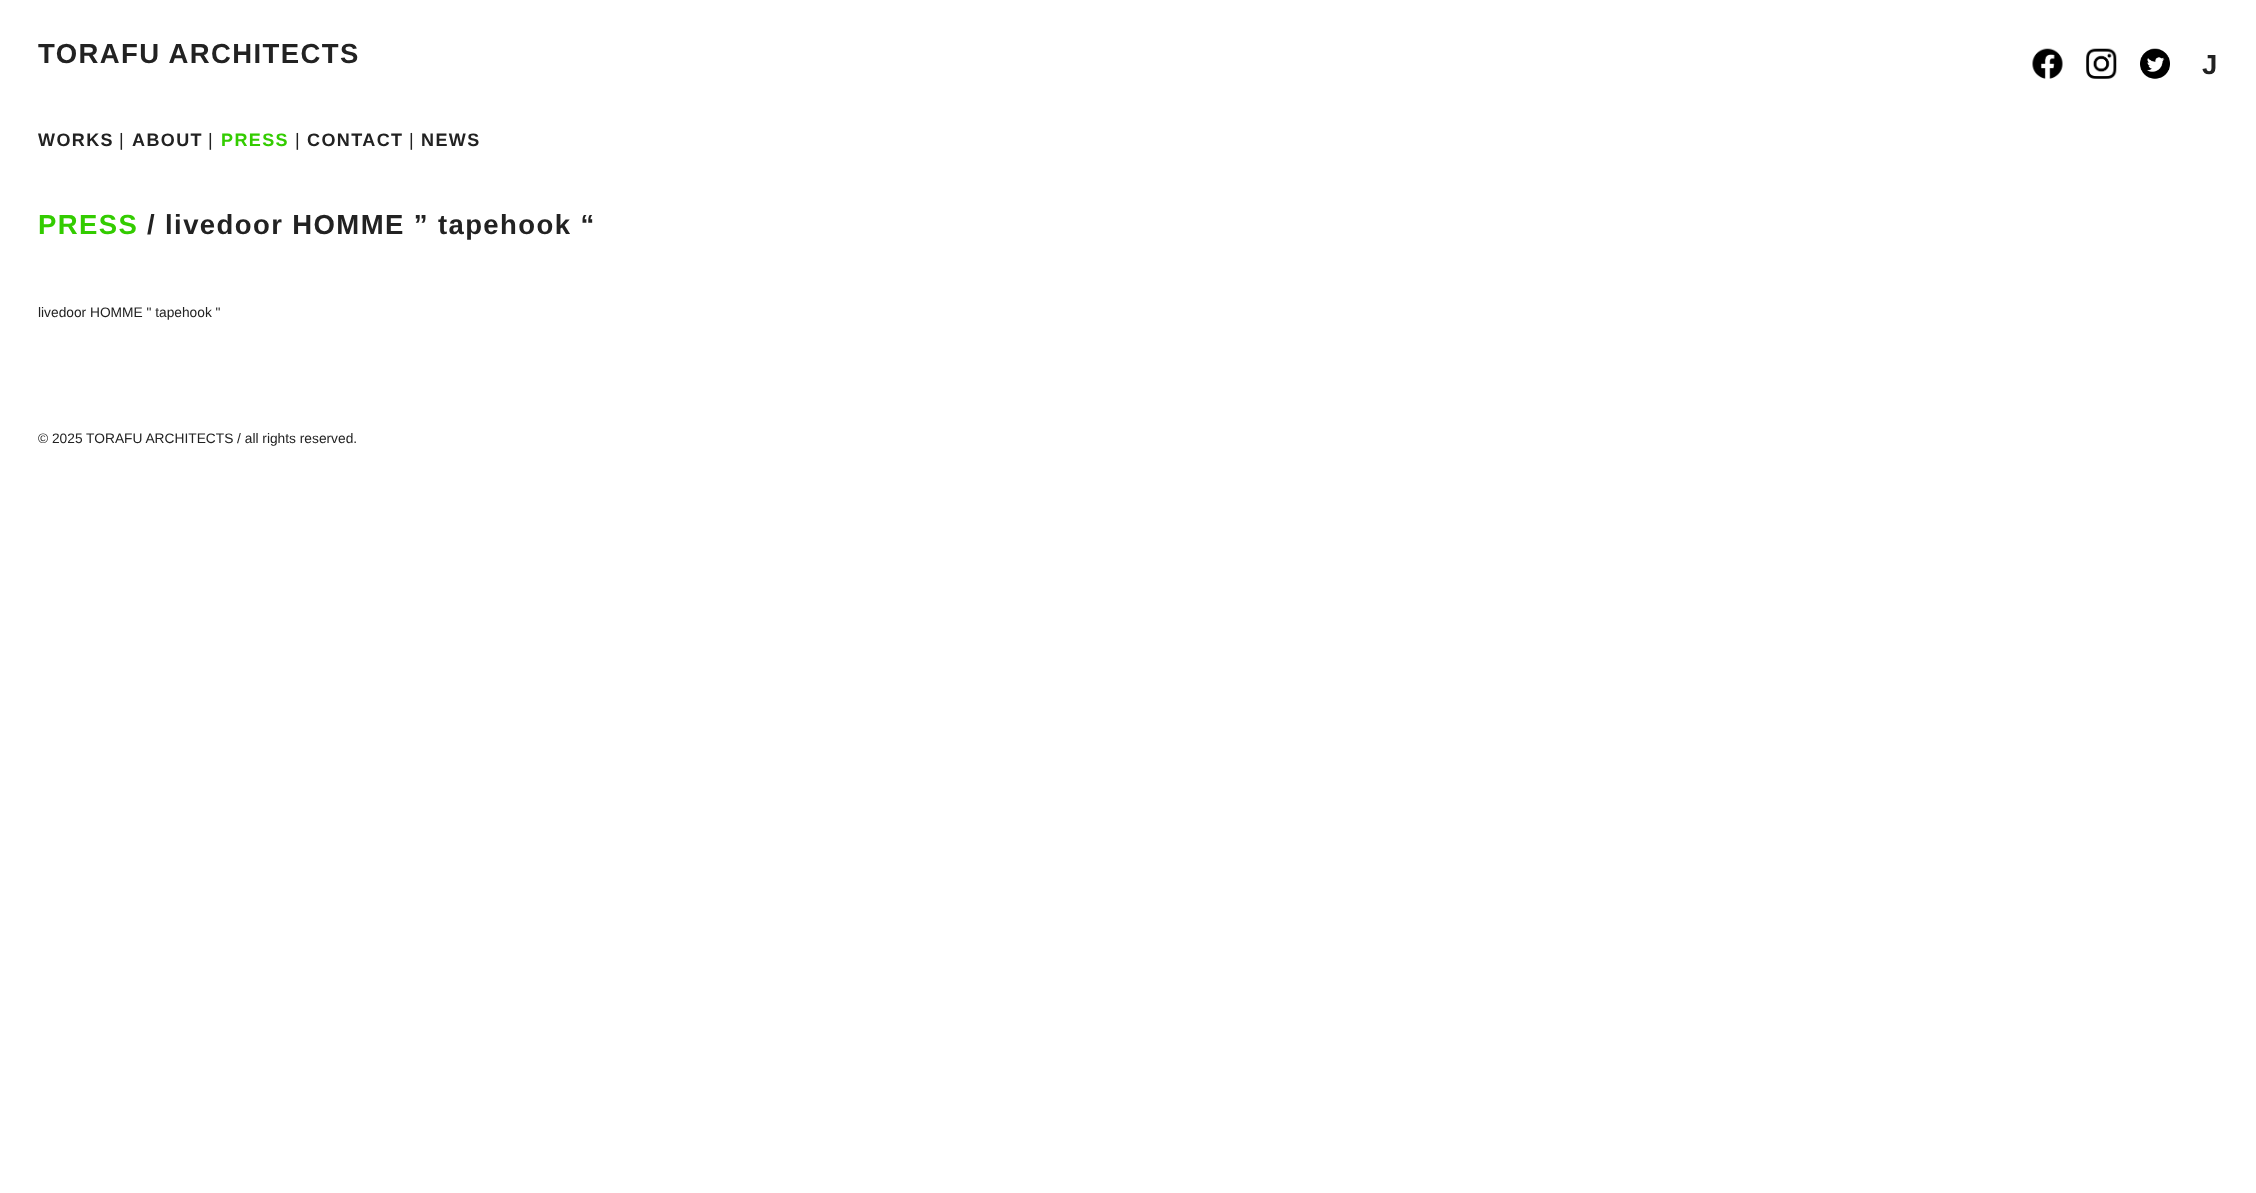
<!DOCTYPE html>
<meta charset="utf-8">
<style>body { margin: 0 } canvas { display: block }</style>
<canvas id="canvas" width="2256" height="1193"></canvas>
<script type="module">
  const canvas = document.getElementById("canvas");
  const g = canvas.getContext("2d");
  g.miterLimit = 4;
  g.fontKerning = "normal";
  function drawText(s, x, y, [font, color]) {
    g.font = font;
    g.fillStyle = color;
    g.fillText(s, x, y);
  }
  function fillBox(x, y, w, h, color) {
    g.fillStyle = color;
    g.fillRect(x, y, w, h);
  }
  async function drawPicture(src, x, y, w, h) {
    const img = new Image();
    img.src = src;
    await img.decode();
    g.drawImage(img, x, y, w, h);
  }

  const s1 = ["bold 27.5px Liberation Sans", "#222222"];
  const s2 = ["bold 18px Liberation Sans", "#222222"];
  const s3 = ["18px Liberation Sans", "#222222"];
  const s4 = ["bold 18px Liberation Sans", "#33CC00"];
  const s5 = ["bold 27.5px Liberation Sans", "#33CC00"];
  const s6 = ["13.75px Liberation Sans", "#222222"];

  fillBox(0, 0, 2256, 1193, "#FFFFFF");
  g.letterSpacing = "1.4px";
  drawText("TORAFU ARCHITECTS", 38, 63, s1);
  await drawPicture("pic1.png", 2032, 48, 31, 31);
  await drawPicture("pic2.png", 2086, 48, 31, 31);
  await drawPicture("pic3.png", 2140, 48, 30, 31);
  drawText("J", 2202, 74, s1);
  drawText("WORKS", 38, 146, s2);
  drawText("|", 119, 146, s3);
  drawText("ABOUT", 132, 146, s2);
  drawText("|", 208, 146, s3);
  drawText("PRESS", 221, 146, s4);
  drawText("|", 295, 146, s3);
  drawText("CONTACT", 307, 146, s2);
  drawText("|", 409, 146, s3);
  drawText("NEWS", 421, 146, s2);
  drawText("PRESS", 38, 234, s5);
  drawText("/ livedoor HOMME ” tapehook “", 147, 234, s1);
  g.letterSpacing = "0px";
  drawText("livedoor HOMME \" tapehook \"", 38, 317, s6);
  drawText("© 2025 TORAFU ARCHITECTS / all rights reserved.", 38, 443, s6);
</script>
